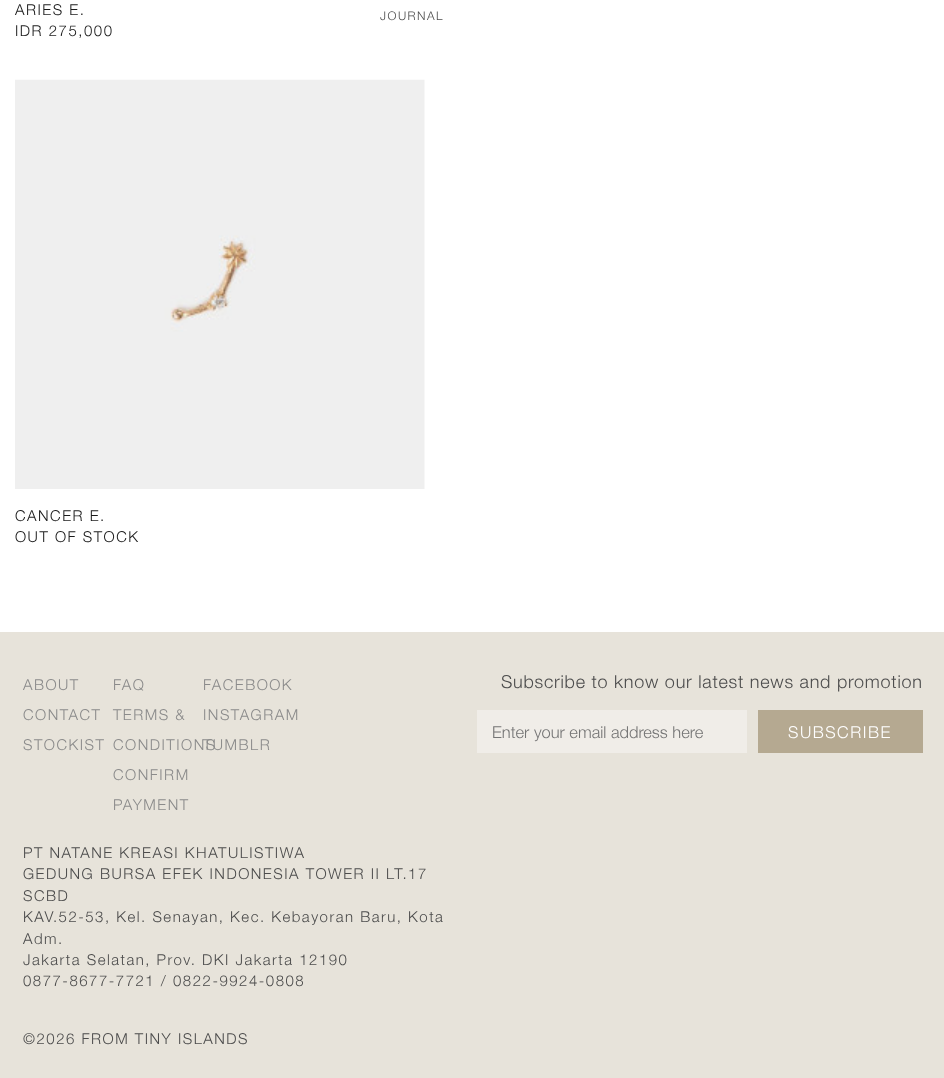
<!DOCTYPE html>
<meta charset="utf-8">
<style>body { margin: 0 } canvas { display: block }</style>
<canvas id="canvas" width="944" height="1078"></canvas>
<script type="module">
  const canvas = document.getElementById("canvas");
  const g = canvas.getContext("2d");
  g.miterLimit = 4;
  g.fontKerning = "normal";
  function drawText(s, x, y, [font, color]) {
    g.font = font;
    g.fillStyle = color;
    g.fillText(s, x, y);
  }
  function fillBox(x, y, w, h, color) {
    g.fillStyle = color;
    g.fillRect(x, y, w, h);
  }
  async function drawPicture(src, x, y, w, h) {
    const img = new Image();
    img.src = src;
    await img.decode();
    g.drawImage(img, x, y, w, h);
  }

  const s1 = ["300 15px Helvetica Neue", "#1A1A1A"];
  const s2 = ["300 12px Helvetica Neue", "#4D4D4D"];
  const s3 = ["300 15px Helvetica Neue", "#8B8B8B"];
  const s4 = ["300 15px Helvetica Neue", "#4D4D4D"];
  const s5 = ["300 18px Helvetica Neue", "#4D4D4D"];
  const s6 = ["300 16.5px Helvetica Neue", "#757575"];
  const s7 = ["300 16.5px Helvetica Neue", "#FFFFFF"];

  fillBox(0, 0, 944, 1078, "#FFFFFF");
  g.letterSpacing = "1.5px";
  drawText("ARIES E.", 15, 15, s1);
  drawText("IDR 275,000", 15, 36, s1);
  await drawPicture("pic1.png", 15, 79, 410, 410);
  drawText("CANCER E.", 15, 521, s1);
  drawText("OUT OF STOCK", 15, 542, s1);
  drawText("JOURNAL", 380, 20, s2);
  fillBox(0, 632, 944, 446, "#E7E3DA");
  drawText("ABOUT", 23, 690, s3);
  drawText("CONTACT", 23, 720, s3);
  drawText("STOCKIST", 23, 750, s3);
  drawText("FAQ", 113, 690, s3);
  drawText("TERMS &", 113, 720, s3);
  drawText("CONDITIONS", 113, 750, s3);
  drawText("CONFIRM", 113, 780, s3);
  drawText("PAYMENT", 113, 810, s3);
  drawText("FACEBOOK", 203, 690, s3);
  drawText("INSTAGRAM", 203, 720, s3);
  drawText("TUMBLR", 203, 750, s3);
  drawText("PT NATANE KREASI KHATULISTIWA", 23, 858, s4);
  drawText("GEDUNG BURSA EFEK INDONESIA TOWER II LT.17", 23, 879, s4);
  drawText("SCBD", 23, 901, s4);
  drawText("KAV.52-53, Kel. Senayan, Kec. Kebayoran Baru, Kota", 23, 922, s4);
  drawText("Adm.", 23, 944, s4);
  drawText("Jakarta Selatan, Prov. DKI Jakarta 12190", 23, 965, s4);
  drawText("0877-8677-7721 / 0822-9924-0808", 23, 986, s4);
  drawText("©2026 FROM TINY ISLANDS", 23, 1044, s4);
  g.letterSpacing = "0.75px";
  drawText("Subscribe to know our latest news and promotion", 501, 688, s5);
  fillBox(477, 710, 270, 43, "#F0EDE8");
  g.letterSpacing = "0px";
  drawText("Enter your email address here", 492, 738, s6);
  fillBox(758, 710, 165, 43, "#B5A991");
  g.letterSpacing = "1.5px";
  drawText("SUBSCRIBE", 788, 738, s7);
</script>
